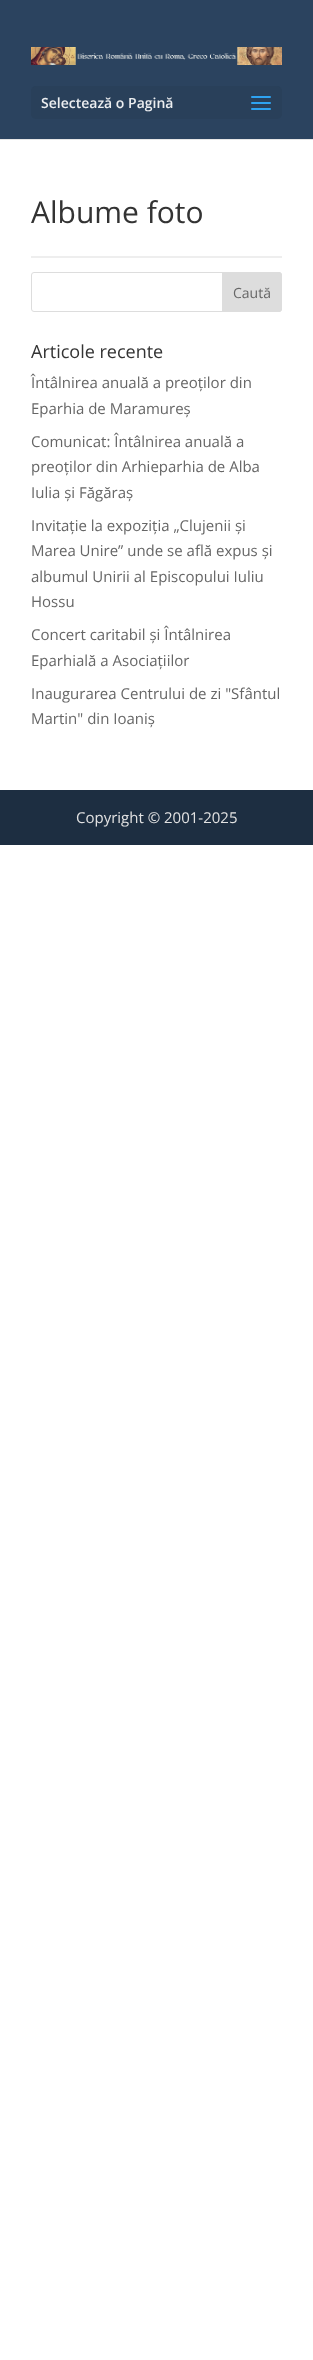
<!DOCTYPE html>
<meta charset="utf-8">
<style>body { margin: 0 } canvas { display: block }</style>
<canvas id="canvas" width="313" height="2360"></canvas>
<script type="module">
  const canvas = document.getElementById("canvas");
  const g = canvas.getContext("2d");
  g.miterLimit = 4;
  g.fontKerning = "normal";
  function drawText(s, x, y, [font, color]) {
    g.font = font;
    g.fillStyle = color;
    g.fillText(s, x, y);
  }
  function fillBox(x, y, w, h, color) {
    g.fillStyle = color;
    g.fillRect(x, y, w, h);
  }
  function fillRounded(x, y, w, h, r, color) {
    g.fillStyle = color;
    g.beginPath();
    g.roundRect(x, y, w, h, r);
    g.fill();
  }
  async function drawPicture(src, x, y, w, h) {
    const img = new Image();
    img.src = src;
    await img.decode();
    g.drawImage(img, x, y, w, h);
  }

  const s1 = ["600 14px Open Sans", "#ECEEF0"];
  const s2 = ["30px Open Sans", "#333333"];
  const s3 = ["14px Open Sans", "#666666"];
  const s4 = ["18px Open Sans", "#333333"];
  const s5 = ["15px Open Sans", "#666666"];
  const s6 = ["15px Open Sans", "#E2E2E2"];

  fillBox(0, 0, 313, 2360, "#FFFFFF");
  fillBox(0, 139, 313, 1, "#E6E6E6");
  fillBox(0, 0, 313, 139, "#2B435F");
  await drawPicture("pic1.png", 31, 47, 251, 18);
  fillRounded(31, 86, 251, 33, 5, "#29405A");
  drawText("Selectează o Pagină", 41, 108, s1);
  await drawPicture("pic2.png", 251, 96, 20, 14);
  drawText("Albume foto", 31, 223, s2);
  fillBox(31, 256, 251, 2, "#EEEEEE");
  g.beginPath();
  g.roundRect(31.5, 272.5, 250, 39, 2.5);
  g.strokeStyle = "#DDDDDD";
  g.stroke();
  g.fillStyle = "#DDDDDD";
  g.beginPath();
  g.roundRect(222.5, 272.5, 59, 39, [0, 2.5, 2.5, 0]);
  g.fill();
  g.stroke();
  drawText("Caută", 233, 298, s3);
  drawText("Articole recente", 31, 358, s4);
  drawText("Întâlnirea anuală a preoților din", 31, 388, s5);
  drawText("Eparhia de Maramureș", 31, 414, s5);
  drawText("Comunicat: Întâlnirea anuală a", 31, 447, s5);
  drawText("preoților din Arhieparhia de Alba", 31, 472, s5);
  drawText("Iulia și Făgăraș", 31, 498, s5);
  drawText("Invitație la expoziția „Clujenii și", 31, 531, s5);
  drawText("Marea Unire” unde se află expus și", 31, 556, s5);
  drawText("albumul Unirii al Episcopului Iuliu", 31, 582, s5);
  drawText("Hossu", 31, 607, s5);
  drawText("Concert caritabil și Întâlnirea", 31, 640, s5);
  drawText("Eparhială a Asociațiilor", 31, 666, s5);
  drawText("Inaugurarea Centrului de zi \"Sfântul", 31, 699, s5);
  drawText("Martin\" din Ioaniș", 31, 724, s5);
  fillBox(0, 790, 313, 55, "#1D2E41");
  drawText("Copyright © 2001-2025", 76, 823, s6);
</script>
